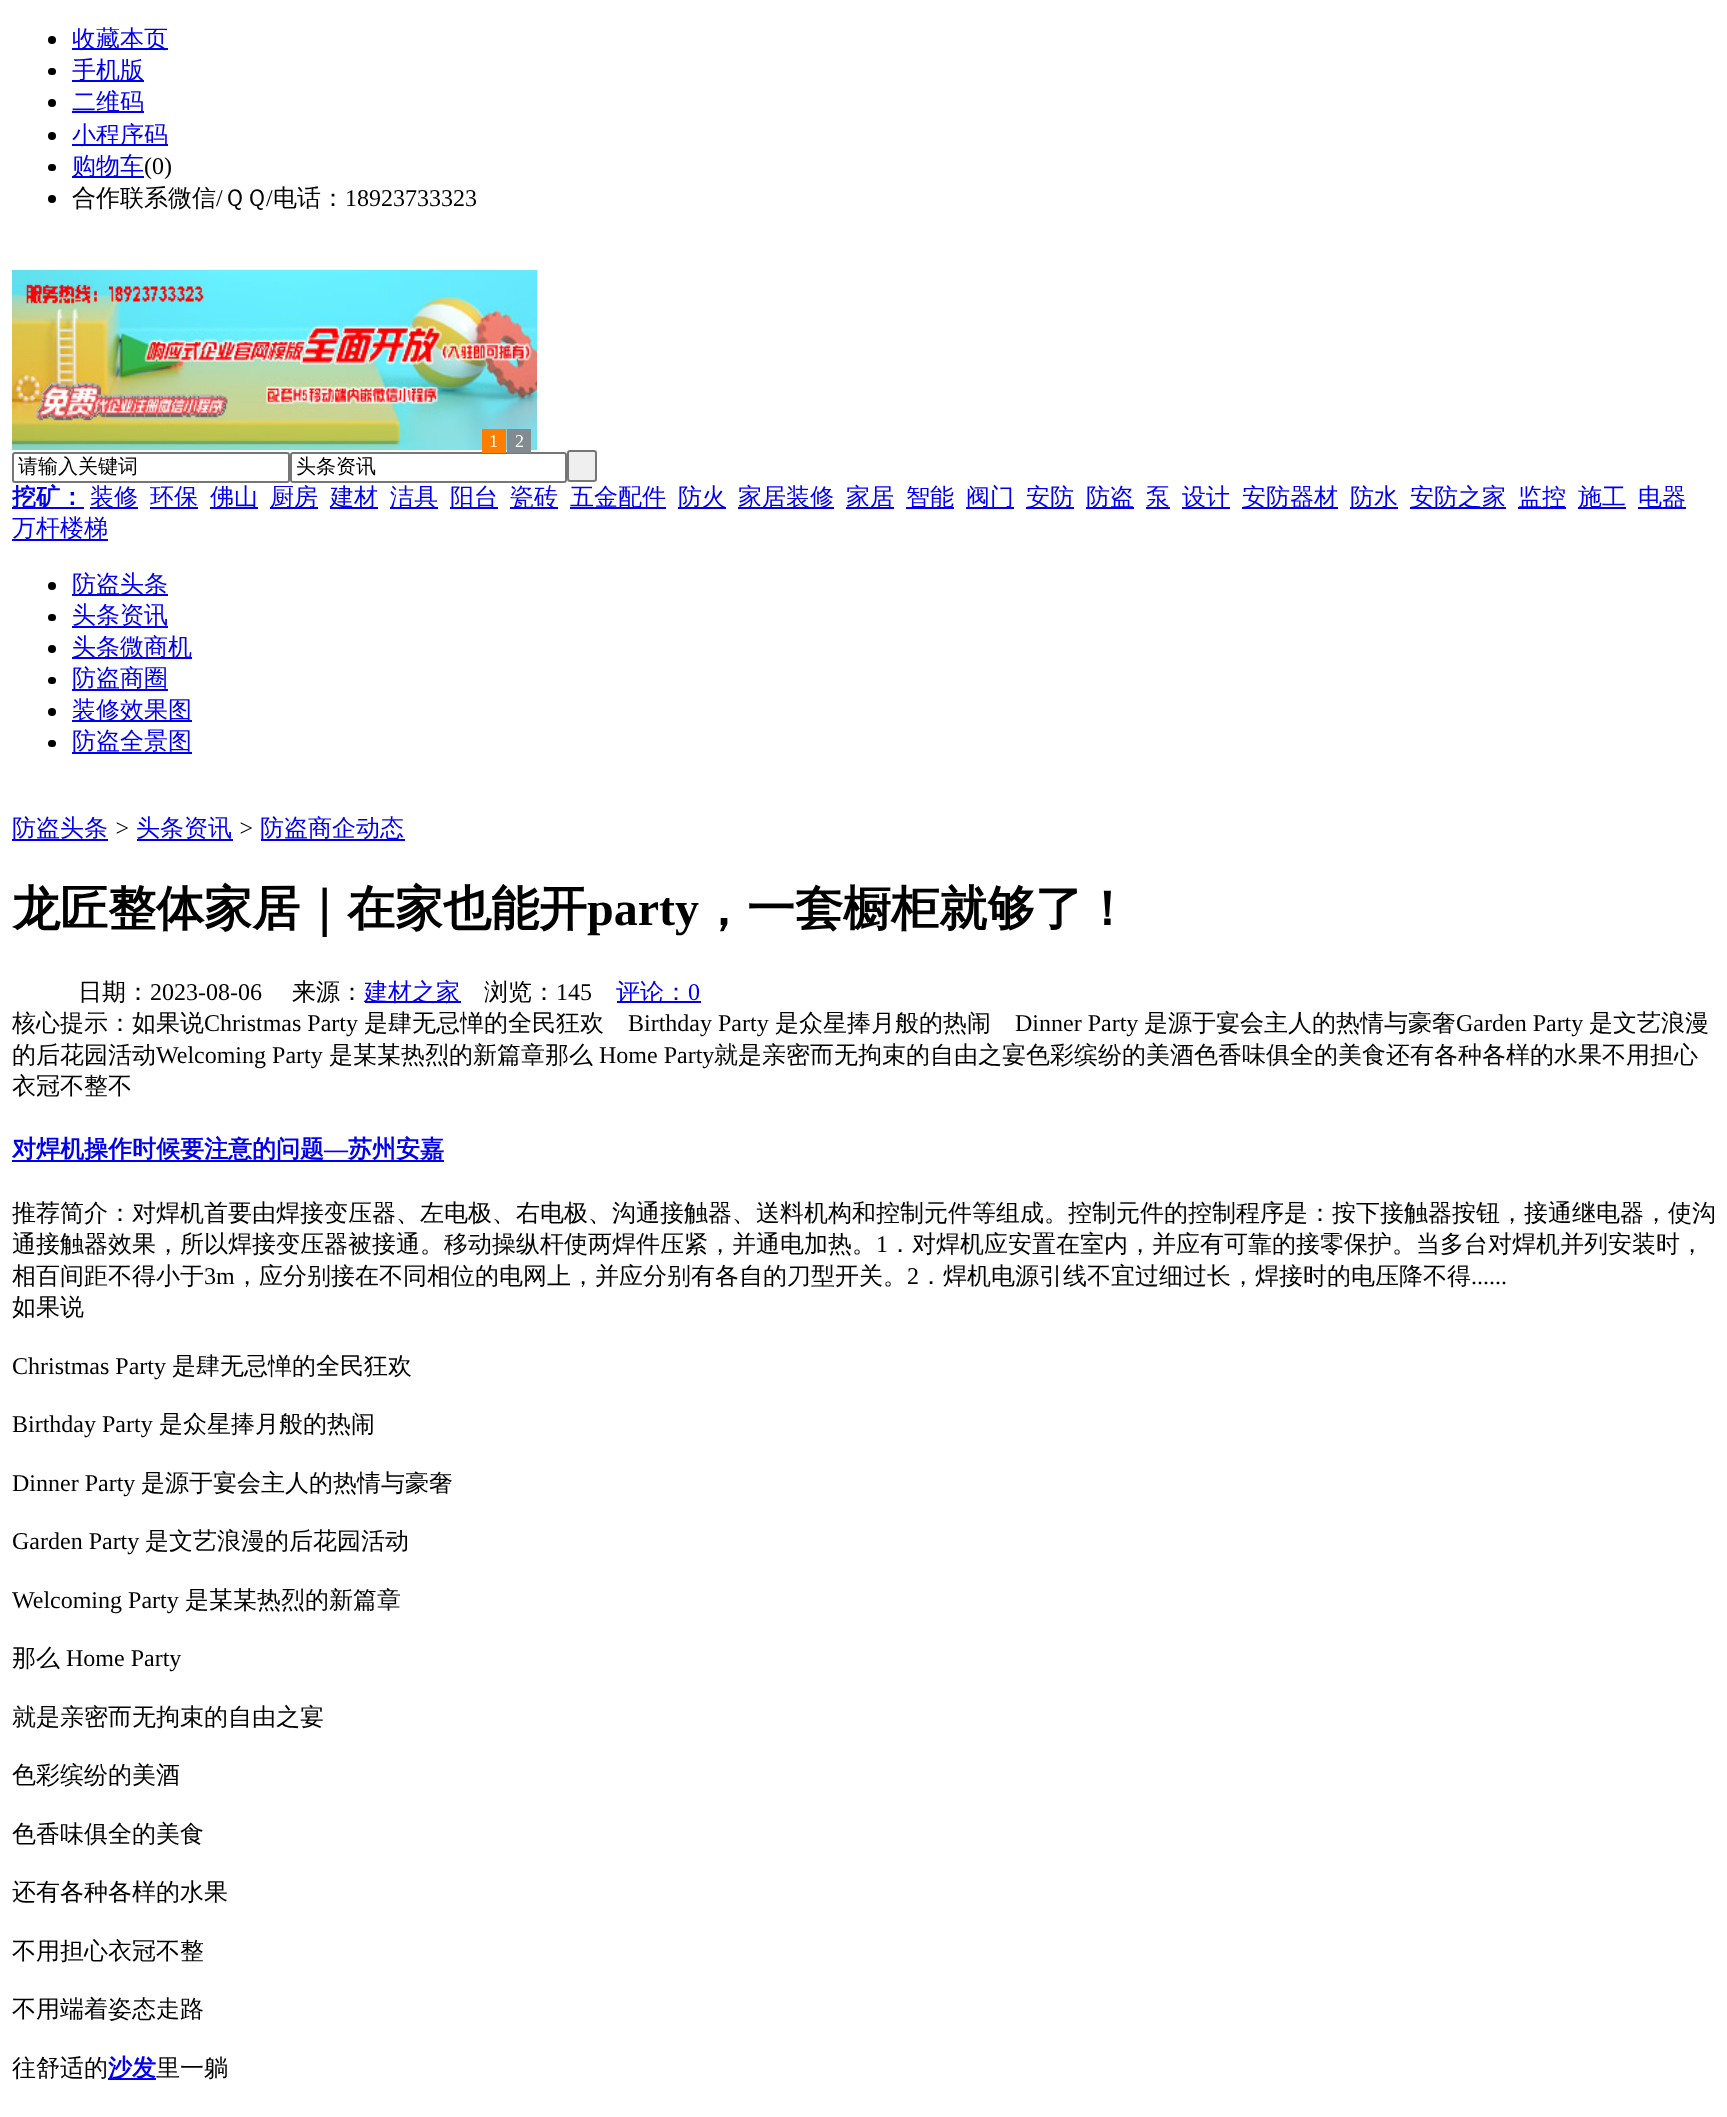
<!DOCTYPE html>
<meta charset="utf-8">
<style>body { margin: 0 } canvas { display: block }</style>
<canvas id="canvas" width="1727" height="2117"></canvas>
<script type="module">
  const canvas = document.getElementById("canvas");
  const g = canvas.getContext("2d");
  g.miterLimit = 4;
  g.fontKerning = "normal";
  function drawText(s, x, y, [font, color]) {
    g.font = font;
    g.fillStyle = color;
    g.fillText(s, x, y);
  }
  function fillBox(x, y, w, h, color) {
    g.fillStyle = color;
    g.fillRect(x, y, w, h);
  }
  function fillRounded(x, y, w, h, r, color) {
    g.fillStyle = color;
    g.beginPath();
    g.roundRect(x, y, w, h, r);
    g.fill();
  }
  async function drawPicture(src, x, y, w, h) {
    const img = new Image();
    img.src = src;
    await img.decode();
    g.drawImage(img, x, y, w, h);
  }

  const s1 = ["500 24px WenQuanYi Zen Hei", "#0000EE"];
  const s2 = ["24px Liberation Serif", "#000000"];
  const s3 = ["500 24px WenQuanYi Zen Hei", "#000000"];
  const s4 = ["18px Liberation Serif", "#FFFFFF"];
  const s5 = ["500 20px WenQuanYi Zen Hei", "#000000"];
  const s6 = ["bold 24px WenQuanYi Zen Hei", "#0000EE"];
  const s7 = ["italic 24px Liberation Serif", "#000000"];
  const s8 = ["bold 48px WenQuanYi Zen Hei", "#000000"];
  const s9 = ["bold 48px Liberation Serif", "#000000"];
  const s10 = ["24px Liberation Serif", "#0000EE"];
  const s11 = ["bold 24px Liberation Serif", "#0000EE"];

  fillBox(0, 0, 1727, 2117, "#FFFFFF");
  g.fillStyle = "#000000";
  g.beginPath();
  g.arc(52, 40, 4, 0, Math.PI * 2);
  g.fill();
  fillBox(72, 48, 96, 2, "#0000EE");
  drawText("收藏本页", 72, 47, s1);
  fillRounded(48, 68, 8, 7, 3.5, "#000000");
  fillBox(72, 80, 72, 2, "#0000EE");
  drawText("手机版", 72, 78, s1);
  g.fillStyle = "#000000";
  g.beginPath();
  g.arc(52, 103, 4, 0, Math.PI * 2);
  g.fill();
  fillBox(72, 111, 72, 2, "#0000EE");
  drawText("二维码", 72, 110, s1);
  g.fillStyle = "#000000";
  g.beginPath();
  g.arc(52, 136, 4, 0, Math.PI * 2);
  g.fill();
  fillBox(72, 144, 96, 2, "#0000EE");
  drawText("小程序码", 72, 143, s1);
  fillRounded(48, 164, 8, 7, 3.5, "#000000");
  fillBox(72, 176, 72, 2, "#0000EE");
  drawText("购物车", 72, 174, s1);
  drawText("(0)", 144, 174, s2);
  g.beginPath();
  g.arc(52, 199, 4, 0, Math.PI * 2);
  g.fill();
  drawText("合作联系微信", 72, 206, s3);
  drawText("/", 216, 206, s2);
  drawText("ＱＱ", 223, 206, s3);
  drawText("/", 266, 206, s2);
  drawText("电话：", 273, 206, s3);
  drawText("18923733323", 345, 206, s2);
  await drawPicture("pic1.png", 12, 270, 525, 180);
  g.beginPath();
  g.roundRect(291, 453, 275, 29, 2);
  g.strokeStyle = "#767676";
  g.lineWidth = 2;
  g.stroke();
  fillBox(482, 429, 24, 24, "#FF7E00");
  drawText("1", 489, 447, s4);
  fillBox(507, 429, 24, 24, "#838B90");
  drawText("2", 515, 447, s4);
  g.beginPath();
  g.roundRect(13, 453, 276, 29, 2);
  g.stroke();
  drawText("请输入关键词", 18, 473, s5);
  drawText("头条资讯", 296, 473, s5);
  g.fillStyle = "#EFEFEF";
  g.beginPath();
  g.roundRect(568, 451, 28, 30, 2);
  g.fill();
  g.stroke();
  fillBox(12, 507, 72, 2, "#0000EE");
  drawText("挖矿：", 12, 505, s6);
  fillBox(90, 507, 48, 2, "#0000EE");
  drawText("装修", 90, 505, s1);
  fillBox(150, 507, 48, 2, "#0000EE");
  drawText("环保", 150, 505, s1);
  fillBox(210, 507, 48, 2, "#0000EE");
  drawText("佛山", 210, 505, s1);
  fillBox(270, 507, 48, 2, "#0000EE");
  drawText("厨房", 270, 505, s1);
  fillBox(330, 507, 48, 2, "#0000EE");
  drawText("建材", 330, 505, s1);
  fillBox(390, 507, 48, 2, "#0000EE");
  drawText("洁具", 390, 505, s1);
  fillBox(450, 507, 48, 2, "#0000EE");
  drawText("阳台", 450, 505, s1);
  fillBox(510, 507, 48, 2, "#0000EE");
  drawText("瓷砖", 510, 505, s1);
  fillBox(570, 507, 96, 2, "#0000EE");
  drawText("五金配件", 570, 505, s1);
  fillBox(678, 507, 48, 2, "#0000EE");
  drawText("防火", 678, 505, s1);
  fillBox(738, 507, 96, 2, "#0000EE");
  drawText("家居装修", 738, 505, s1);
  fillBox(846, 507, 48, 2, "#0000EE");
  drawText("家居", 846, 505, s1);
  fillBox(906, 507, 48, 2, "#0000EE");
  drawText("智能", 906, 505, s1);
  fillBox(966, 507, 48, 2, "#0000EE");
  drawText("阀门", 966, 505, s1);
  fillBox(1026, 507, 48, 2, "#0000EE");
  drawText("安防", 1026, 505, s1);
  fillBox(1086, 507, 48, 2, "#0000EE");
  drawText("防盗", 1086, 505, s1);
  fillBox(1146, 507, 24, 2, "#0000EE");
  drawText("泵", 1146, 505, s1);
  fillBox(1182, 507, 48, 2, "#0000EE");
  drawText("设计", 1182, 505, s1);
  fillBox(1242, 507, 96, 2, "#0000EE");
  drawText("安防器材", 1242, 505, s1);
  fillBox(1350, 507, 48, 2, "#0000EE");
  drawText("防水", 1350, 505, s1);
  fillBox(1410, 507, 96, 2, "#0000EE");
  drawText("安防之家", 1410, 505, s1);
  fillBox(1518, 507, 48, 2, "#0000EE");
  drawText("监控", 1518, 505, s1);
  fillBox(1578, 507, 48, 2, "#0000EE");
  drawText("施工", 1578, 505, s1);
  fillBox(1638, 507, 48, 2, "#0000EE");
  drawText("电器", 1638, 505, s1);
  fillBox(12, 539, 96, 2, "#0000EE");
  drawText("万杆楼梯", 12, 536, s1);
  g.fillStyle = "#000000";
  g.beginPath();
  g.arc(52, 586, 4, 0, Math.PI * 2);
  g.fill();
  fillBox(72, 594, 96, 2, "#0000EE");
  drawText("防盗头条", 72, 592, s1);
  fillRounded(48, 614, 8, 7, 3.5, "#000000");
  fillBox(72, 626, 96, 2, "#0000EE");
  drawText("头条资讯", 72, 623, s1);
  g.fillStyle = "#000000";
  g.beginPath();
  g.arc(52, 649, 4, 0, Math.PI * 2);
  g.fill();
  fillBox(72, 657, 120, 2, "#0000EE");
  drawText("头条微商机", 72, 655, s1);
  fillRounded(48, 677, 8, 7, 3.5, "#000000");
  fillBox(72, 689, 96, 2, "#0000EE");
  drawText("防盗商圈", 72, 686, s1);
  g.fillStyle = "#000000";
  g.beginPath();
  g.arc(52, 712, 4, 0, Math.PI * 2);
  g.fill();
  fillBox(72, 720, 120, 2, "#0000EE");
  drawText("装修效果图", 72, 718, s1);
  fillRounded(48, 740, 8, 7, 3.5, "#000000");
  fillBox(72, 752, 120, 2, "#0000EE");
  drawText("防盗全景图", 72, 749, s1);
  fillBox(12, 839, 96, 2, "#0000EE");
  drawText("防盗头条", 12, 836, s1);
  drawText(">", 114, 836, s7);
  fillBox(137, 839, 96, 2, "#0000EE");
  drawText("头条资讯", 136, 836, s1);
  drawText(">", 238, 836, s7);
  fillBox(261, 839, 144, 2, "#0000EE");
  drawText("防盗商企动态", 260, 836, s1);
  drawText("龙匠整体家居｜在家也能开", 12, 925, s8);
  drawText("party", 587, 925, s9);
  drawText("，一套橱柜就够了！", 699, 925, s8);
  drawText("日期：", 78, 1000, s3);
  drawText("2023-08-06", 150, 1000, s2);
  drawText("来源：", 292, 1000, s3);
  fillBox(365, 1001, 96, 2, "#0000EE");
  drawText("建材之家", 364, 1000, s1);
  drawText("浏览：", 484, 1000, s3);
  drawText("145", 556, 1000, s2);
  fillBox(617, 1001, 84, 2, "#0000EE");
  drawText("评论：", 616, 1000, s1);
  drawText("0", 688, 1000, s10);
  drawText("核心提示：如果说", 12, 1031, s3);
  drawText("Christmas Party", 204, 1031, s2);
  drawText("是肆无忌惮的全民狂欢", 364, 1031, s3);
  drawText("Birthday Party", 628, 1031, s2);
  drawText("是众星捧月般的热闹", 775, 1031, s3);
  drawText("Dinner Party", 1015, 1031, s2);
  drawText("是源于宴会主人的热情与豪奢", 1144, 1031, s3);
  drawText("Garden Party", 1456, 1031, s2);
  drawText("是文艺浪漫", 1589, 1031, s3);
  drawText("的后花园活动", 12, 1063, s3);
  drawText("Welcoming Party", 156, 1063, s2);
  drawText("是某某热烈的新篇章那么", 329, 1063, s3);
  drawText("Home Party", 599, 1063, s2);
  drawText("就是亲密而无拘束的自由之宴色彩缤纷的美酒色香味俱全的美食还有各种各样的水果不用担心", 714, 1063, s3);
  drawText("衣冠不整不", 12, 1094, s3);
  fillBox(12, 1160, 432, 2, "#0000EE");
  drawText("对焊机操作时候要注意的问题", 12, 1157, s6);
  drawText("—", 324, 1157, s11);
  drawText("苏州安嘉", 348, 1157, s6);
  drawText("推荐简介：对焊机首要由焊接变压器、左电极、右电极、沟通接触器、送料机构和控制元件等组成。控制元件的控制程序是：按下接触器按钮，接通继电器，使沟", 12, 1221, s3);
  drawText("通接触器效果，所以焊接变压器被接通。移动操纵杆使两焊件压紧，并通电加热。", 12, 1252, s3);
  drawText("1", 876, 1252, s2);
  drawText("．对焊机应安置在室内，并应有可靠的接零保护。当多台对焊机并列安装时，", 888, 1252, s3);
  drawText("相百间距不得小于", 12, 1284, s3);
  drawText("3m", 204, 1284, s2);
  drawText("，应分别接在不同相位的电网上，并应分别有各自的刀型开关。", 235, 1284, s3);
  drawText("2", 907, 1284, s2);
  drawText("．焊机电源引线不宜过细过长，焊接时的电压降不得", 919, 1284, s3);
  drawText("......", 1471, 1284, s2);
  drawText("如果说", 12, 1315, s3);
  drawText("Christmas Party", 12, 1374, s2);
  drawText("是肆无忌惮的全民狂欢", 172, 1374, s3);
  drawText("Birthday Party", 12, 1432, s2);
  drawText("是众星捧月般的热闹", 159, 1432, s3);
  drawText("Dinner Party", 12, 1491, s2);
  drawText("是源于宴会主人的热情与豪奢", 141, 1491, s3);
  drawText("Garden Party", 12, 1549, s2);
  drawText("是文艺浪漫的后花园活动", 145, 1549, s3);
  drawText("Welcoming Party", 12, 1608, s2);
  drawText("是某某热烈的新篇章", 185, 1608, s3);
  drawText("那么", 12, 1666, s3);
  drawText("Home Party", 66, 1666, s2);
  drawText("就是亲密而无拘束的自由之宴", 12, 1725, s3);
  drawText("色彩缤纷的美酒", 12, 1783, s3);
  drawText("色香味俱全的美食", 12, 1842, s3);
  drawText("还有各种各样的水果", 12, 1900, s3);
  drawText("不用担心衣冠不整", 12, 1959, s3);
  drawText("不用端着姿态走路", 12, 2017, s3);
  drawText("往舒适的", 12, 2076, s3);
  fillBox(108, 2078, 48, 2, "#0000EE");
  drawText("沙发", 108, 2076, s6);
  drawText("里一躺", 156, 2076, s3);
</script>
